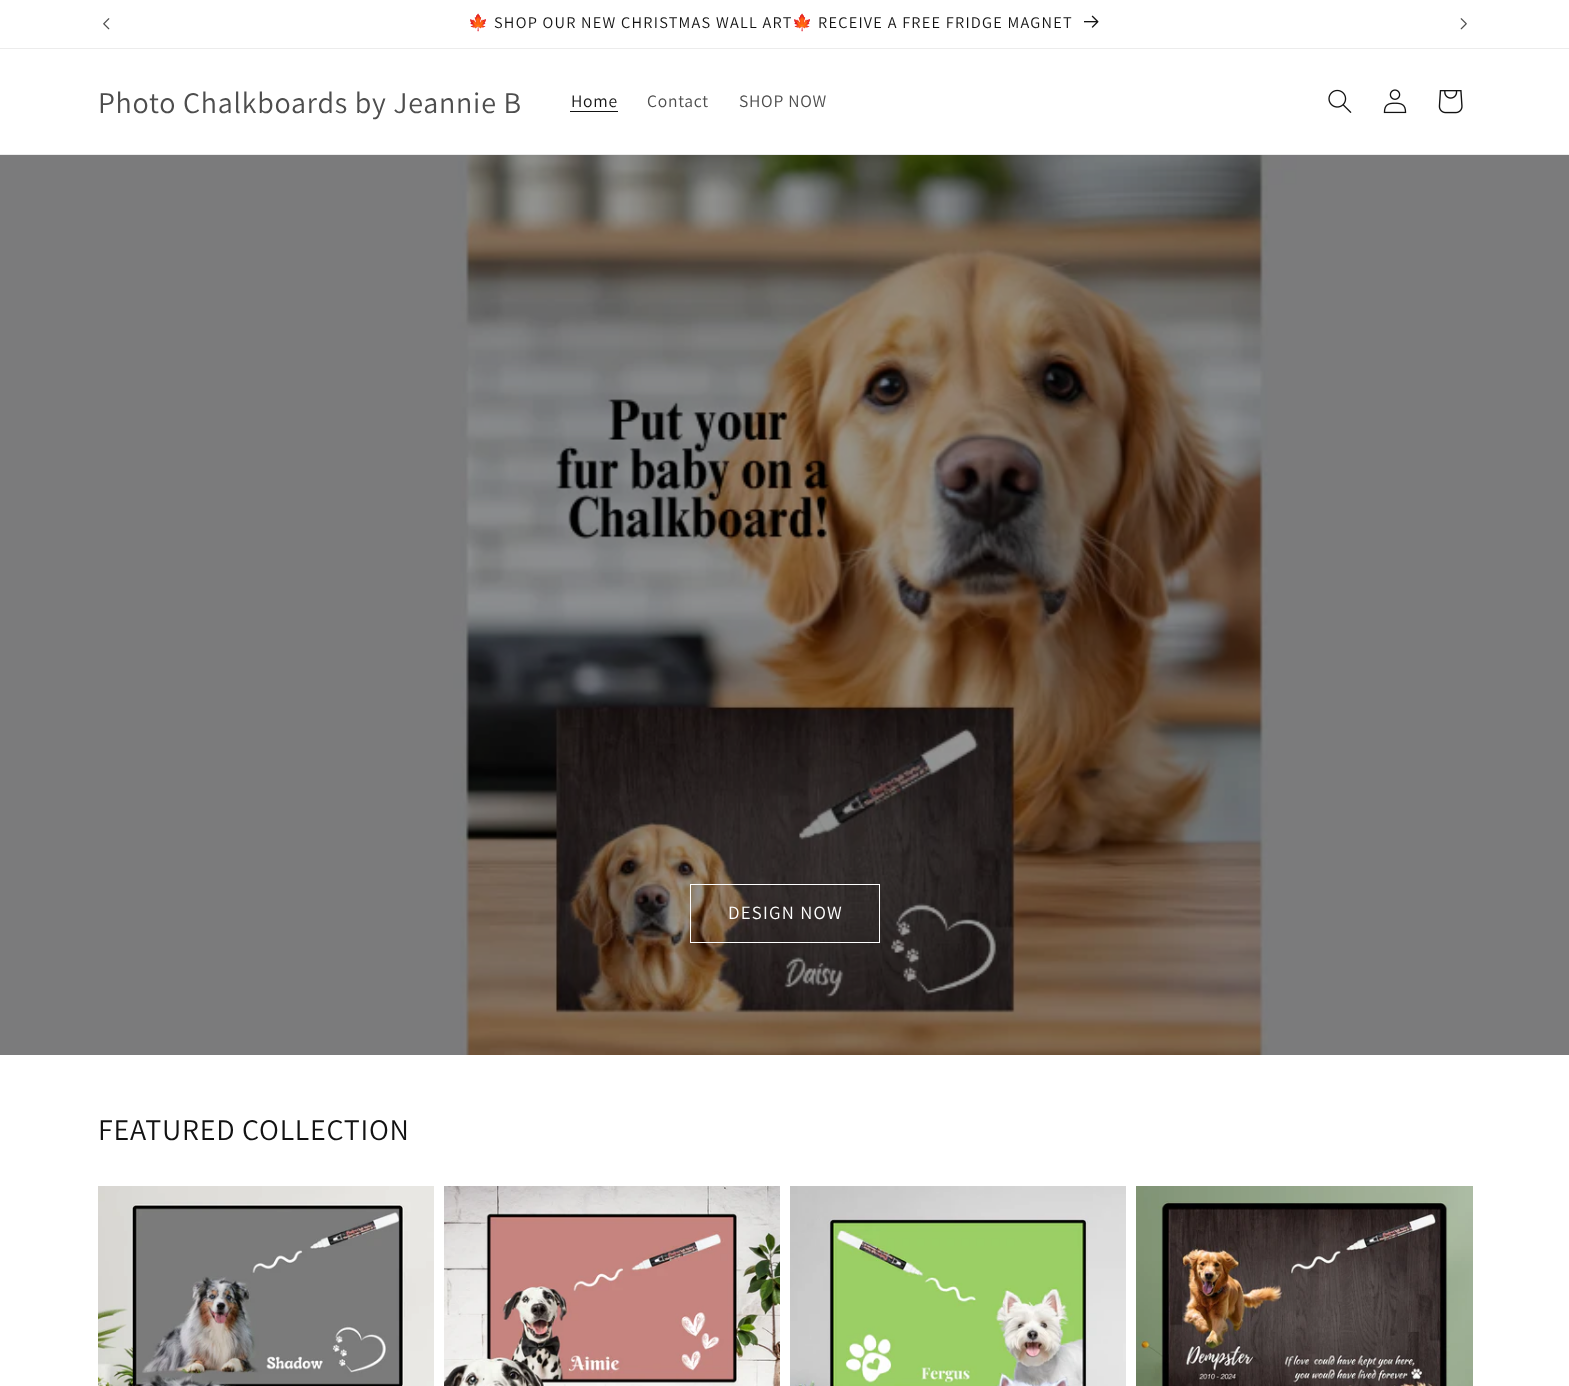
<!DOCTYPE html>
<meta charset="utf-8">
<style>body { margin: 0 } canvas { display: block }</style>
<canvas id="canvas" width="1569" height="1386"></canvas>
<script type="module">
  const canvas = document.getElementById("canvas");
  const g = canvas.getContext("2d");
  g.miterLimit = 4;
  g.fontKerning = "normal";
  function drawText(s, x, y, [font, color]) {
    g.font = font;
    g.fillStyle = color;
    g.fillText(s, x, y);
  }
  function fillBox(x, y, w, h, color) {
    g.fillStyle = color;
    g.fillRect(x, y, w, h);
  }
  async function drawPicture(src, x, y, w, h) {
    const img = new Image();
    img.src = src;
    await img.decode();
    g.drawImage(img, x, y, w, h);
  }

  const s1 = ["16.25px Noto Color Emoji", "#121212"];
  const s2 = ["16.25px Assistant", "#121212"];
  const s3 = ["30px Assistant", "#4D4D4D"];
  const s4 = ["17.5px Assistant", "#121212"];
  const s5 = ["17.5px Assistant", "#4D4D4D"];
  const s6 = ["18.75px Assistant", "#FFFFFF"];
  const s7 = ["30px Assistant", "#121212"];

  fillBox(0, 0, 1569, 1386, "#FFFFFF");
  fillBox(0, 48, 1569, 1, "#ECECEC");
  await drawPicture("pic1.png", 103, 18, 7, 12);
  g.letterSpacing = "1.25px";
  drawText("🍁", 468, 28, s1);
  drawText("SHOP OUR NEW CHRISTMAS WALL ART", 494, 28, s2);
  drawText("🍁", 792, 28, s1);
  drawText("RECEIVE A FREE FRIDGE MAGNET", 818, 28, s2);
  await drawPicture("pic2.png", 1084, 15, 15, 13);
  await drawPicture("pic3.png", 1460, 18, 7, 12);
  fillBox(0, 154, 1569, 1, "#ECECEC");
  g.letterSpacing = "0.75px";
  drawText("Photo Chalkboards by Jeannie B", 98, 113, s3);
  drawText("Home", 571, 107, s4);
  fillBox(570, 111, 48, 1, "#121212");
  drawText("Contact", 647, 107, s5);
  drawText("SHOP NOW", 739, 107, s5);
  await drawPicture("pic4.png", 1328, 89, 24, 24);
  await drawPicture("pic5.png", 1383, 89, 24, 25);
  await drawPicture("pic6.png", 1438, 90, 25, 24);
  await drawPicture("pic7.png", 0, 155, 1569, 900);
  g.strokeStyle = "#FFFFFF";
  g.strokeRect(690.5, 884.5, 189, 58);
  g.letterSpacing = "1.25px";
  drawText("DESIGN NOW", 728, 919, s6);
  g.letterSpacing = "0.75px";
  drawText("FEATURED COLLECTION", 98, 1140, s7);
  await drawPicture("pic8.png", 98, 1186, 336, 200);
  await drawPicture("pic9.png", 444, 1186, 336, 200);
  await drawPicture("pic10.png", 790, 1186, 336, 200);
  await drawPicture("pic11.png", 1136, 1186, 337, 200);
</script>
